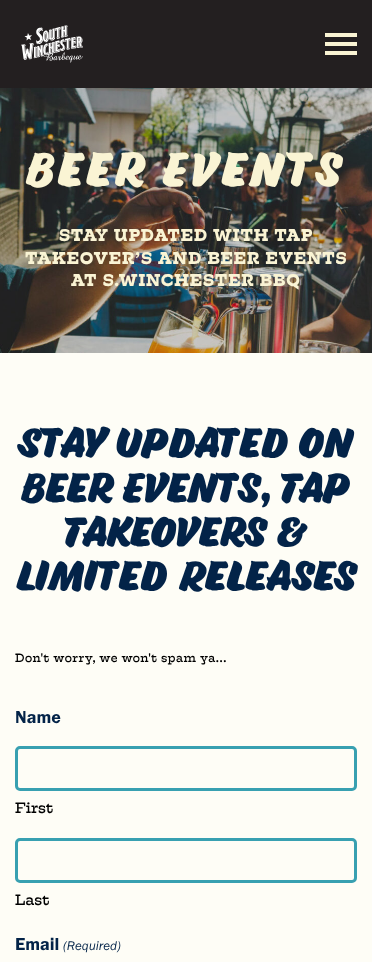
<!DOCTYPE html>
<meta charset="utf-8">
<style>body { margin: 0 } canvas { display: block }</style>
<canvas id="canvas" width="372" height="962"></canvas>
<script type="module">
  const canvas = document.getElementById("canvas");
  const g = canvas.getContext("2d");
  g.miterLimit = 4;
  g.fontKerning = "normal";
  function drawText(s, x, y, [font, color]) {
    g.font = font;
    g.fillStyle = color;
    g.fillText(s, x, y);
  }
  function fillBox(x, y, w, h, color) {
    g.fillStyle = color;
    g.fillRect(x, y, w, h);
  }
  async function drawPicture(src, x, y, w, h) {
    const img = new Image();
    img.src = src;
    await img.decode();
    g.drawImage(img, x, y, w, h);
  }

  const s1 = ["bold 44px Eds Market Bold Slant", "#FAF4D4"];
  const s2 = ["bold 17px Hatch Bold", "#FAF4D4"];
  const s3 = ["bold 38px Eds Market Bold Slant", "#032348"];
  const s4 = ["12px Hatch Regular", "#000000"];
  const s5 = ["18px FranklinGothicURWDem", "#032348"];
  const s6 = ["15px Hatch Regular", "#000000"];
  const s7 = ["italic 13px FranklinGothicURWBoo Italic", "#032348"];

  fillBox(0, 0, 372, 962, "#FEFDF6");
  fillBox(0, 0, 372, 88, "#231F20");
  await drawPicture("pic1.png", 21, 25, 62, 38);
  fillBox(325, 42, 32, 4, "#FAF4D4");
  fillBox(325, 33, 32, 4, "#FAF4D4");
  fillBox(325, 51, 32, 4, "#FAF4D4");
  await drawPicture("pic2.png", 0, 88, 372, 265);
  g.letterSpacing = "5px";
  drawText("Beer Events", 27, 186, s1);
  g.letterSpacing = "1px";
  drawText("STAY UPDATED WITH TAP", 59, 241, s2);
  drawText("TAKEOVER’S AND BEER EVENTS", 25, 264, s2);
  drawText("AT S.WINCHESTER BBQ", 71, 286, s2);
  drawText("Stay Updated on", 19, 457, s3);
  drawText("Beer Events, Tap", 22, 502, s3);
  drawText("Takeovers &", 65, 546, s3);
  drawText("Limited Releases", 16, 590, s3);
  g.letterSpacing = "0.5px";
  drawText("Don't worry, we won't spam ya...", 15, 662, s4);
  g.letterSpacing = "0px";
  drawText("Name", 15, 723, s5);
  g.beginPath();
  g.roundRect(16.5, 747.5, 339, 42, 3.5);
  g.strokeStyle = "#38A0B1";
  g.lineWidth = 3;
  g.stroke();
  drawText("First", 15, 813, s6);
  g.beginPath();
  g.roundRect(16.5, 839.5, 339, 42, 3.5);
  g.stroke();
  drawText("Last", 15, 905, s6);
  drawText("Email", 15, 950, s5);
  drawText("(Required)", 63, 950, s7);
</script>
